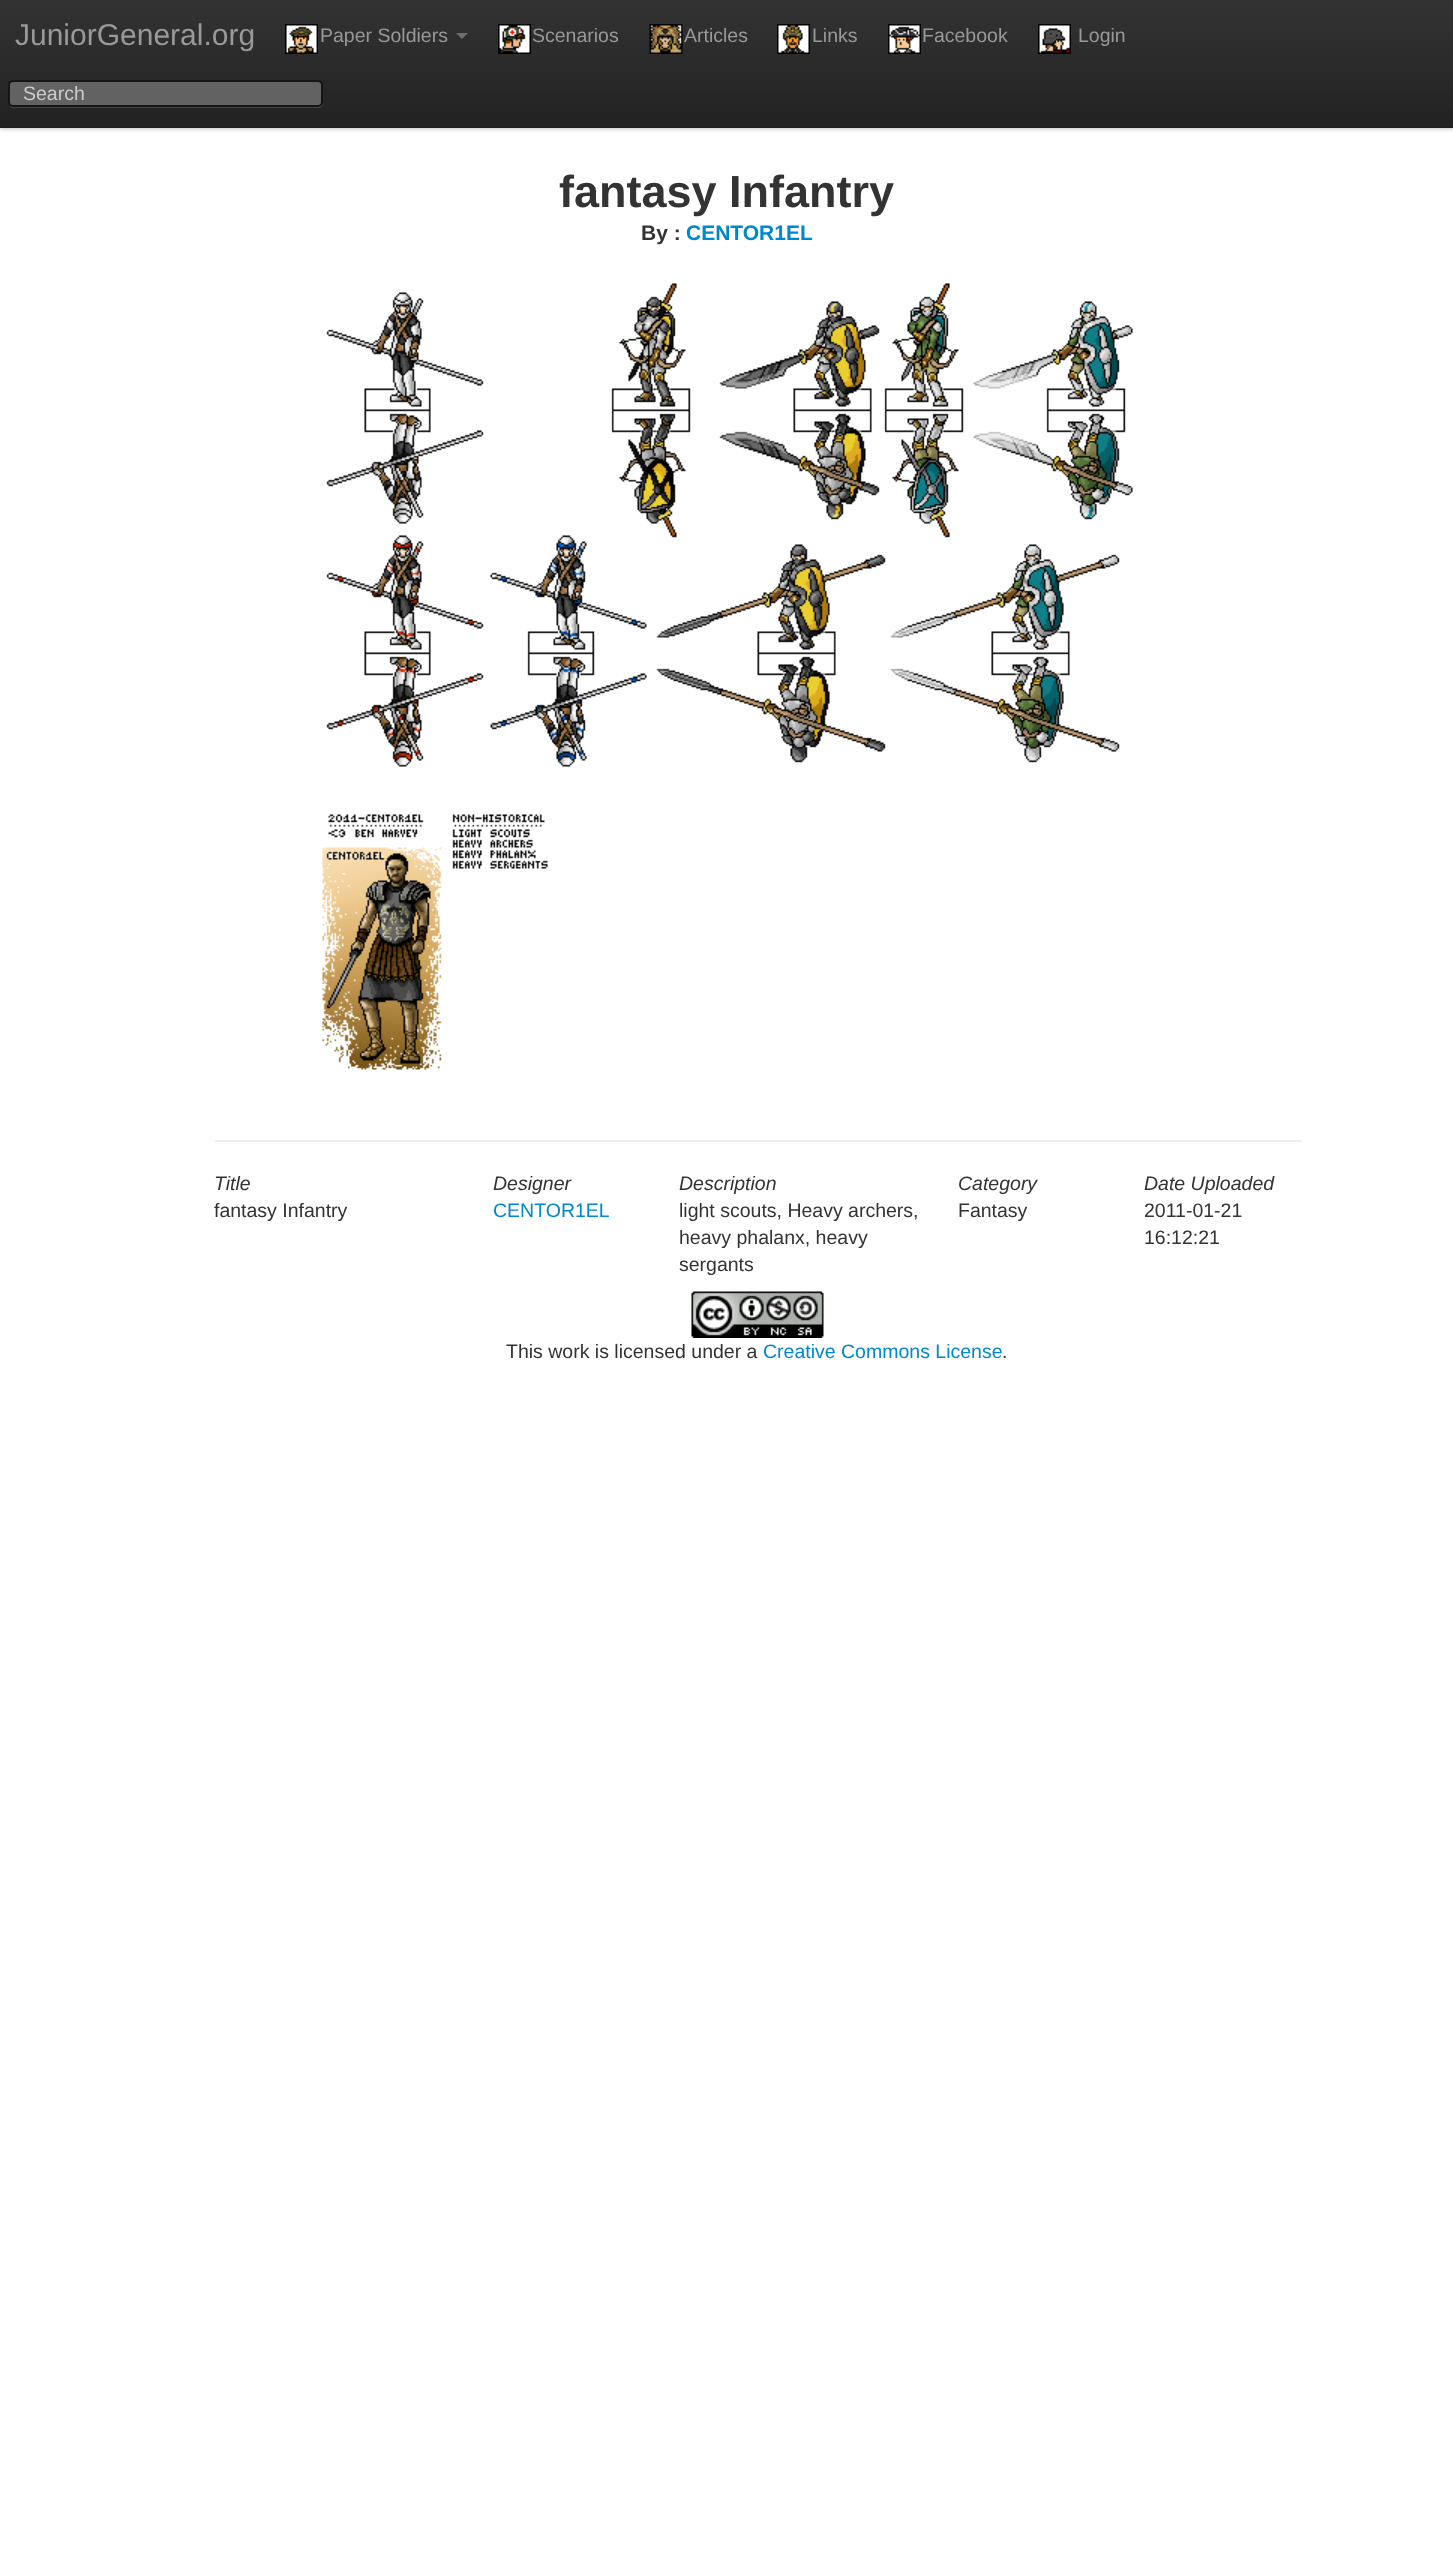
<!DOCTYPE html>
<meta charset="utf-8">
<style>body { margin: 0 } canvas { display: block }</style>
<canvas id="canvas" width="1453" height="2559"></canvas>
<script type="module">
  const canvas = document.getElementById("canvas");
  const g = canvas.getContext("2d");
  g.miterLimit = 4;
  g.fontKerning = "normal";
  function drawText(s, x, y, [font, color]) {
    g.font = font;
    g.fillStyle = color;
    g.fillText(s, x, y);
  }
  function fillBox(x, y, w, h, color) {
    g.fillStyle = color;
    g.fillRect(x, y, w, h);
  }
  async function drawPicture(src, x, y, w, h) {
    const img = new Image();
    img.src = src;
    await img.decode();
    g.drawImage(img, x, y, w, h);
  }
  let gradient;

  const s1 = ["30px Liberation Sans", "#999999"];
  const s2 = ["19.5px Liberation Sans", "#999999"];
  const s3 = ["19.5px Liberation Sans", "#CCCCCC"];
  const s4 = ["bold 45px Liberation Sans", "#333333"];
  const s5 = ["bold 21px Liberation Sans", "#333333"];
  const s6 = ["bold 21px Liberation Sans", "#0088CC"];
  const s7 = ["italic 19.5px Liberation Sans", "#333333"];
  const s8 = ["19.5px Liberation Sans", "#333333"];
  const s9 = ["19.5px Liberation Sans", "#0088CC"];

  fillBox(0, 0, 1453, 2559, "#FFFFFF");
  g.fillStyle = "rgba(0, 0, 0, 0.25)";
  g.filter = "blur(2px)";
  g.beginPath();
  g.rect(0, 2, 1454, 127);
  g.fill();
  g.filter = "none";
  gradient = g.createLinearGradient(727, 0, 727, 128);
  gradient.addColorStop(0, "#333333");
  gradient.addColorStop(1, "#222222");
  g.fillStyle = gradient;
  g.fillRect(0, 0, 1453, 126);
  fillBox(0, 126, 1453, 2, "#1F1F1F");
  drawText("JuniorGeneral.org", 15, 45, s1);
  await drawPicture("pic1.png", 285, 24, 33, 30);
  drawText("Paper Soldiers", 320, 42, s2);
  g.fillStyle = "#6D6D6D";
  g.beginPath();
  g.moveTo(456, 33);
  g.lineTo(468, 33);
  g.lineTo(462, 39);
  g.closePath();
  g.fill();
  await drawPicture("pic2.png", 498, 24, 33, 30);
  drawText("Scenarios", 532, 42, s2);
  await drawPicture("pic3.png", 649, 24, 34, 30);
  drawText("Articles", 684, 42, s2);
  await drawPicture("pic4.png", 777, 24, 33, 30);
  drawText("Links", 812, 42, s2);
  await drawPicture("pic5.png", 888, 24, 33, 30);
  drawText("Facebook", 922, 42, s2);
  await drawPicture("pic6.png", 1038, 24, 33, 30);
  drawText("Login", 1078, 42, s2);
  g.fillStyle = "rgba(255, 255, 255, 0.15)";
  g.beginPath();
  g.moveTo(8, 104);
  g.bezierCurveTo(9, 106, 11, 108, 13, 108);
  g.lineTo(318, 108);
  g.bezierCurveTo(321, 108, 323, 106, 323, 103);
  g.lineTo(323, 86);
  g.lineTo(322, 84);
  g.lineTo(322, 102);
  g.bezierCurveTo(322, 104, 320, 106, 318, 106);
  g.lineTo(12, 106);
  g.bezierCurveTo(10, 106, 9, 106, 8, 104);
  g.closePath();
  g.fill();
  g.fillStyle = "#626262";
  g.beginPath();
  g.roundRect(9, 81, 313, 25, 4);
  g.fill();
  g.strokeStyle = "#151515";
  g.lineWidth = 2;
  g.stroke();
  drawText("Search", 23, 100, s3);
  drawText("fantasy Infantry", 559, 207, s4);
  drawText("By :", 641, 240, s5);
  drawText("CENTOR1EL", 686, 240, s6);
  await drawPicture("pic7.png", 322, 283, 811, 787);
  fillBox(215, 1140, 1086, 2, "#EEEEEE");
  drawText("Title", 214, 1190, s7);
  drawText("fantasy Infantry", 214, 1217, s8);
  drawText("Designer", 493, 1190, s7);
  drawText("CENTOR1EL", 493, 1217, s9);
  drawText("Description", 679, 1190, s7);
  drawText("light scouts, Heavy archers,", 679, 1217, s8);
  drawText("heavy phalanx, heavy", 679, 1244, s8);
  drawText("sergants", 679, 1271, s8);
  drawText("Category", 958, 1190, s7);
  drawText("Fantasy", 958, 1217, s8);
  drawText("Date Uploaded", 1144, 1190, s7);
  drawText("2011-01-21", 1144, 1217, s8);
  drawText("16:12:21", 1144, 1244, s8);
  await drawPicture("pic8.png", 691, 1291, 133, 47);
  drawText("This work is licensed under a", 506, 1358, s8);
  drawText("Creative Commons License", 763, 1358, s9);
  drawText(".", 1002, 1358, s8);
</script>
